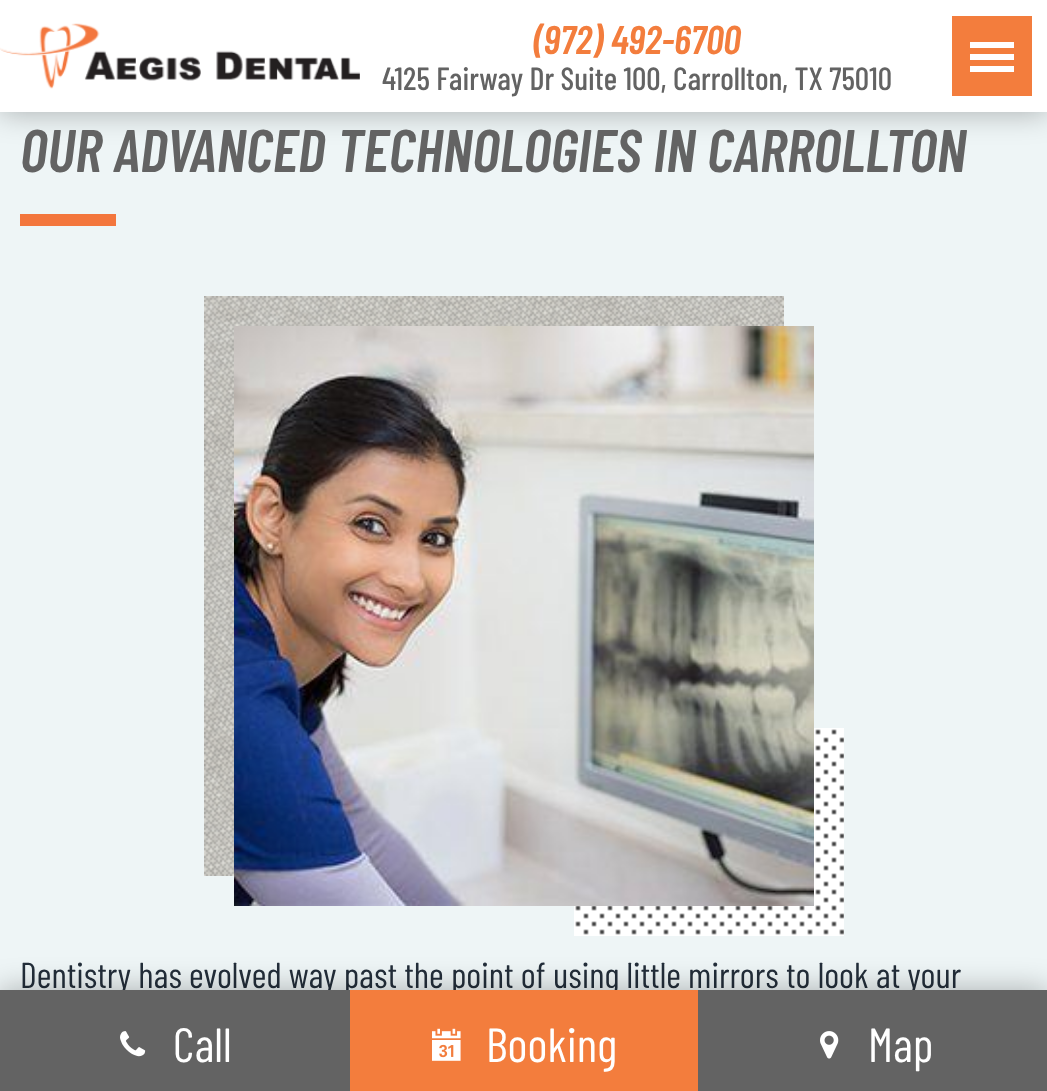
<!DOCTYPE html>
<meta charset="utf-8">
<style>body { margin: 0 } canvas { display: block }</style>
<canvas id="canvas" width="1047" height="1091"></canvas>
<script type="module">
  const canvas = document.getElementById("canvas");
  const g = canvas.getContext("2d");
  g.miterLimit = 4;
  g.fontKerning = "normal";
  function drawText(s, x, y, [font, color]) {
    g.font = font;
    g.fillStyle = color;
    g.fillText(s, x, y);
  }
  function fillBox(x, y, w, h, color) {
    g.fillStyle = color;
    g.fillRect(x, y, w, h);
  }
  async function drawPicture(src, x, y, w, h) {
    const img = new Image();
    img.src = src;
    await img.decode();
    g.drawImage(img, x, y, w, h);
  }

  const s1 = ["italic 600 40px Barlow Condensed", "#F37D3D"];
  const s2 = ["500 32px Barlow Condensed", "#636363"];
  const s3 = ["italic 600 60px Barlow Condensed", "#636363"];
  const s4 = ["36px Barlow Condensed", "#232E3A"];
  const s5 = ["48px Barlow Condensed", "#FFFFFF"];

  fillBox(0, 0, 1047, 1091, "#EEF5F6");
  g.fillStyle = "rgba(0, 0, 0, 0.3)";
  g.filter = "blur(15px)";
  g.beginPath();
  g.rect(0, 0, 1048, 112);
  g.fill();
  g.filter = "none";
  fillBox(0, 0, 1047, 112, "#FFFFFF");
  await drawPicture("pic1.png", 0, 23, 360, 66);
  drawText("(972) 492-6700", 533, 54, s1);
  drawText("4125 Fairway Dr Suite 100, Carrollton, TX 75010", 382, 90, s2);
  fillBox(952, 16, 80, 80, "#F37D3D");
  fillBox(970, 42, 44, 6, "#FFFFFF");
  fillBox(970, 54, 44, 6, "#FFFFFF");
  fillBox(970, 66, 44, 6, "#FFFFFF");
  drawText("OUR ADVANCED TECHNOLOGIES IN CARROLLTON", 20, 172, s3);
  fillBox(20, 214, 96, 12, "#F3763D");
  await drawPicture("pic2.png", 204, 296, 580, 580);
  await drawPicture("pic4.png", 574, 728, 270, 208);
  await drawPicture("pic3.png", 234, 326, 580, 580);
  drawText("Dentistry has evolved way past the point of using little mirrors to look at your", 20, 988, s4);
  g.fillStyle = "rgba(0, 0, 0, 0.3)";
  g.filter = "blur(15px)";
  g.beginPath();
  g.rect(0, 990, 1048, 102);
  g.fill();
  g.filter = "none";
  fillBox(0, 990, 350, 101, "#636363");
  await drawPicture("pic5.png", 120, 1031, 26, 26);
  drawText("Call", 173, 1062, s5);
  fillBox(350, 990, 348, 101, "#F37D3D");
  await drawPicture("pic6.png", 432, 1028, 29, 33);
  drawText("Booking", 486, 1062, s5);
  fillBox(698, 990, 349, 101, "#636363");
  await drawPicture("pic7.png", 820, 1031, 19, 28);
  drawText("Map", 868, 1062, s5);
</script>
